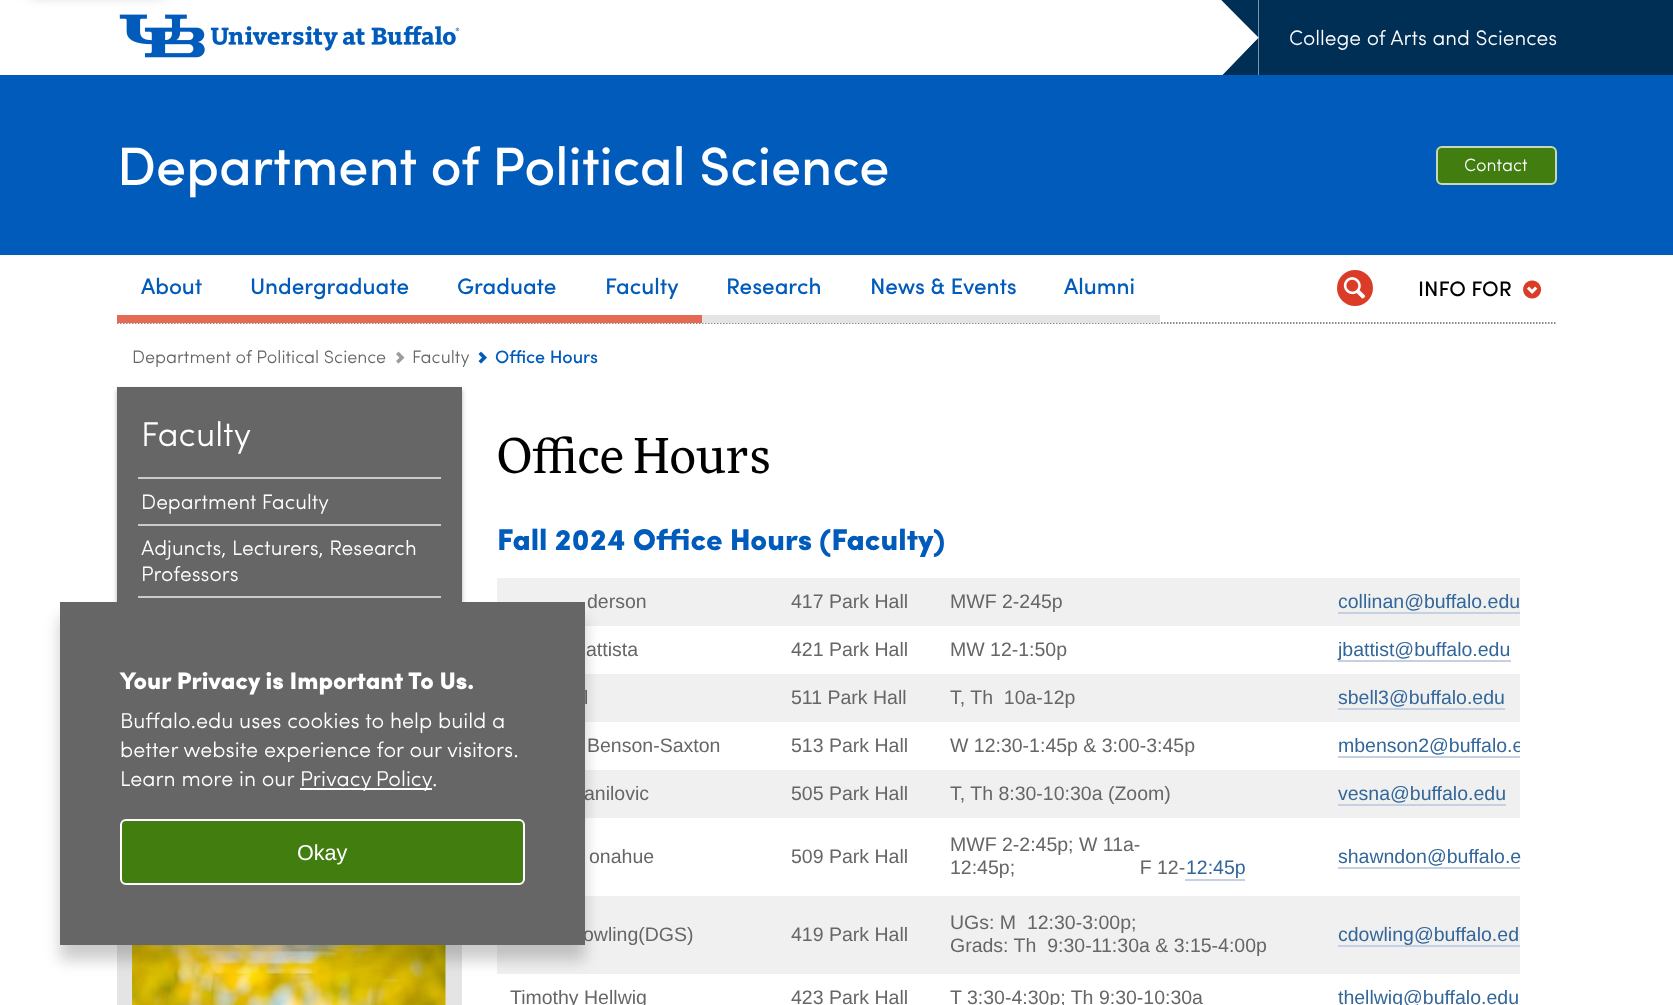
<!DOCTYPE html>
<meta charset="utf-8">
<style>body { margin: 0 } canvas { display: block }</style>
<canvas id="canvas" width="1673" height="1005"></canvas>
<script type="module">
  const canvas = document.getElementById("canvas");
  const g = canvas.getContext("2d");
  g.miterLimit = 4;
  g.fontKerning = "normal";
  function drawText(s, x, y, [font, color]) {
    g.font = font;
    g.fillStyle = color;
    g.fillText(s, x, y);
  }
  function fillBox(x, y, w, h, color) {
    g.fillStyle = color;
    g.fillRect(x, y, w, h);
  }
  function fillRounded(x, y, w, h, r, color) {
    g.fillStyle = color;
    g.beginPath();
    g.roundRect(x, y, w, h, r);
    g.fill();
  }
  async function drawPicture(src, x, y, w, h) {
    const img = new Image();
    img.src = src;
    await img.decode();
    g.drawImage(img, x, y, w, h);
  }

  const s1 = ["21px Sofia", "#FFFFFF"];
  const s2 = ["500 54px Sofia", "#FFFFFF"];
  const s3 = ["18px Sofia", "#FFFFFF"];
  const s4 = ["500 22.5px Sofia", "#005BBB"];
  const s5 = ["500 21px Sofia", "#000000"];
  const s6 = ["18px Sofia", "#666666"];
  const s7 = ["500 18px Sofia", "#005BBB"];
  const s8 = ["34.5px Sofia", "#FFFFFF"];
  const s9 = ["48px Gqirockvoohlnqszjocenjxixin", "#000000"];
  const s10 = ["30px 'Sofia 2'", "#005BBB"];
  const s11 = ["19.5px Liberation Sans", "#666666"];
  const s12 = ["19.5px Liberation Sans", "#336699"];
  const s13 = ["24px 'Sofia 2'", "#FFFFFF"];
  const s14 = ["21.6px Sofia", "#FFFFFF"];
  const s15 = ["21.6px Liberation Sans", "#FFFFFF"];

  fillBox(0, 0, 1673, 1005, "#FFFFFF");
  await drawPicture("pic1.png", 119, 14, 341, 44);
  g.fillStyle = "rgba(0, 0, 0, 0.5)";
  g.filter = "blur(7.5px)";
  g.beginPath();
  g.rect(30, -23, 135, 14);
  g.fill();
  g.filter = "none";
  g.fillStyle = "#002F56";
  g.beginPath();
  g.moveTo(1221, 0);
  g.lineTo(1258.5, 0);
  g.lineTo(1258.5, 37.5);
  g.closePath();
  g.fill();
  fillBox(0, 75, 1673, 180, "#005BBB");
  g.fillStyle = "#002F56";
  g.beginPath();
  g.moveTo(1258.5, 76.5);
  g.lineTo(1221, 76.5);
  g.lineTo(1258.5, 37.5);
  g.closePath();
  g.fill();
  g.fillStyle = "#FFFFFF";
  g.beginPath();
  g.moveTo(1221, 76);
  g.lineTo(1221, 0);
  g.lineTo(1258, 38);
  g.closePath();
  g.fill();
  fillBox(1259, 0, 414, 75, "#002F56");
  drawText("College of Arts and Sciences", 1289, 45, s1);
  fillBox(1221, 75, 38, 2, "#005BBB");
  drawText("Department of Political Science", 117, 185, s2);
  fillRounded(1436, 146, 121, 39, 6, "#427D10");
  g.beginPath();
  g.roundRect(1437, 147, 119, 37, 5);
  g.strokeStyle = "rgba(255, 255, 255, 0.7)";
  g.lineWidth = 2;
  g.stroke();
  drawText("Contact", 1464, 171, s3);
  g.beginPath();
  g.moveTo(117, 323);
  g.lineTo(1557, 323);
  g.strokeStyle = "#666666";
  g.lineWidth = 1.5;
  g.setLineDash([1.5, 1.5]);
  g.stroke();
  drawText("About", 141, 294, s4);
  fillBox(117, 315, 585, 8, "#E56A54");
  drawText("Undergraduate", 250, 294, s4);
  drawText("Graduate", 457, 294, s4);
  drawText("Faculty", 605, 294, s4);
  drawText("Research", 726, 294, s4);
  fillBox(702, 315, 458, 8, "#E4E4E4");
  drawText("News & Events", 870, 294, s4);
  drawText("Alumni", 1064, 294, s4);
  g.fillStyle = "#DA3C28";
  g.beginPath();
  g.arc(1355, 288, 18, 0, Math.PI * 2);
  g.fill();
  await drawPicture("pic2.png", 1343, 277, 23, 22);
  drawText("INFO FOR", 1418, 296, s5);
  await drawPicture("pic3.png", 1523, 280, 19, 19);
  drawText("Department of Political Science", 132, 363, s6);
  await drawPicture("pic4.png", 396, 351, 9, 13);
  drawText("Faculty", 412, 363, s6);
  await drawPicture("pic5.png", 478, 351, 9, 13);
  drawText("Office Hours", 495, 363, s7);
  g.fillStyle = "rgba(0, 0, 0, 0.3)";
  g.filter = "blur(2px)";
  g.beginPath();
  g.rect(117, 390, 345, 369);
  g.fill();
  g.filter = "none";
  fillBox(117, 387, 345, 215, "#666666");
  drawText("Faculty", 141, 446, s8);
  fillBox(138, 477, 303, 2, "#CBCBCB");
  drawText("Department Faculty", 141, 509, s1);
  fillBox(138, 524, 303, 2, "#CBCBCB");
  drawText("Adjuncts, Lecturers, Research", 141, 555, s1);
  drawText("Professors", 141, 581, s1);
  fillBox(138, 596, 303, 2, "#CBCBCB");
  fillBox(117, 945, 345, 60, "#E4E4E4");
  await drawPicture("pic6.png", 132, 945, 314, 60);
  drawText("Office Hours", 497, 473, s9);
  drawText("Fall 2024 Office Hours (Faculty)", 497, 550, s10);
  fillBox(497, 578, 1023, 48, "#F0F0F0");
  drawText("derson", 587, 608, s11);
  drawText("417 Park Hall", 791, 608, s11);
  drawText("MWF 2-245p", 950, 608, s11);
  drawText("collinan@buffalo.edu", 1338, 608, s12);
  fillBox(1338, 612, 182, 2, "#C3D1E3");
  drawText("attista", 586, 656, s11);
  drawText("421 Park Hall", 791, 656, s11);
  drawText("MW 12-1:50p", 950, 656, s11);
  fillBox(1338, 660, 173, 2, "#C3D1E3");
  drawText("jbattist@buffalo.edu", 1338, 656, s12);
  fillBox(585, 674, 935, 48, "#F0F0F0");
  drawText("l", 584, 704, s11);
  drawText("511 Park Hall", 791, 704, s11);
  drawText("T, Th  10a-12p", 950, 704, s11);
  drawText("sbell3@buffalo.edu", 1338, 704, s12);
  fillBox(1338, 708, 167, 2, "#C3D1E3");
  drawText("Benson-Saxton", 587, 752, s11);
  drawText("513 Park Hall", 791, 752, s11);
  drawText("W 12:30-1:45p & 3:00-3:45p", 950, 752, s11);
  g.save();
  g.beginPath();
  g.rect(497, 578, 1023, 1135);
  g.clip();
  drawText("mbenson2@buffalo.e", 1338, 752, s12);
  g.restore();
  fillBox(1338, 756, 182, 2, "#C3D1E3");
  fillBox(585, 770, 935, 48, "#F0F0F0");
  drawText("anilovic", 584, 800, s11);
  drawText("505 Park Hall", 791, 800, s11);
  drawText("T, Th 8:30-10:30a (Zoom)", 950, 800, s11);
  drawText("vesna@buffalo.edu", 1338, 800, s12);
  fillBox(1338, 804, 168, 2, "#C3D1E3");
  drawText("onahue", 589, 863, s11);
  drawText("509 Park Hall", 791, 863, s11);
  drawText("MWF 2-2:45p; W 11a-", 950, 851, s11);
  drawText("12:45p;                       F 12-", 950, 874, s11);
  drawText("12:45p", 1186, 874, s12);
  fillBox(1185, 879, 60, 2, "#C3D1E3");
  drawText("shawndon@buffalo.e", 1338, 863, s12);
  fillBox(1338, 867, 182, 2, "#C3D1E3");
  fillBox(497, 896, 1023, 78, "#F0F0F0");
  drawText("owling(DGS)", 583, 941, s11);
  drawText("419 Park Hall", 791, 941, s11);
  drawText("UGs: M  12:30-3:00p;", 950, 929, s11);
  drawText("Grads: Th  9:30-11:30a & 3:15-4:00p", 950, 952, s11);
  fillBox(1338, 945, 182, 2, "#C3D1E3");
  drawText("cdowling@buffalo.ed", 1338, 941, s12);
  drawText("Timothy Hellwig", 510, 1004, s11);
  drawText("423 Park Hall", 791, 1004, s11);
  drawText("T 3:30-4:30p; Th 9:30-10:30a", 950, 1004, s11);
  drawText("thellwig@buffalo.edu", 1338, 1004, s12);
  g.fillStyle = "rgba(0, 0, 0, 0.2)";
  g.filter = "blur(7.5px)";
  g.beginPath();
  g.rect(60, 617, 525, 343);
  g.fill();
  g.filter = "none";
  fillBox(60, 602, 525, 343, "#666666");
  drawText("Your Privacy is Important To Us.", 120, 689, s13);
  drawText("Buffalo.edu uses cookies to help build a", 120, 728, s14);
  drawText("better website experience for our visitors.", 120, 757, s14);
  drawText("Learn more in our", 120, 786, s14);
  fillBox(300, 788, 132, 2, "#FFFFFF");
  g.wordSpacing = "-1px";
  drawText("Privacy Policy", 300, 786, s14);
  g.wordSpacing = "0px";
  drawText(".", 432, 786, s14);
  g.fillStyle = "#427D10";
  g.beginPath();
  g.roundRect(121, 820, 403, 64, 5);
  g.fill();
  g.strokeStyle = "#FFFFFF";
  g.lineWidth = 2;
  g.setLineDash([]);
  g.stroke();
  drawText("Okay", 297, 860, s15);
</script>
